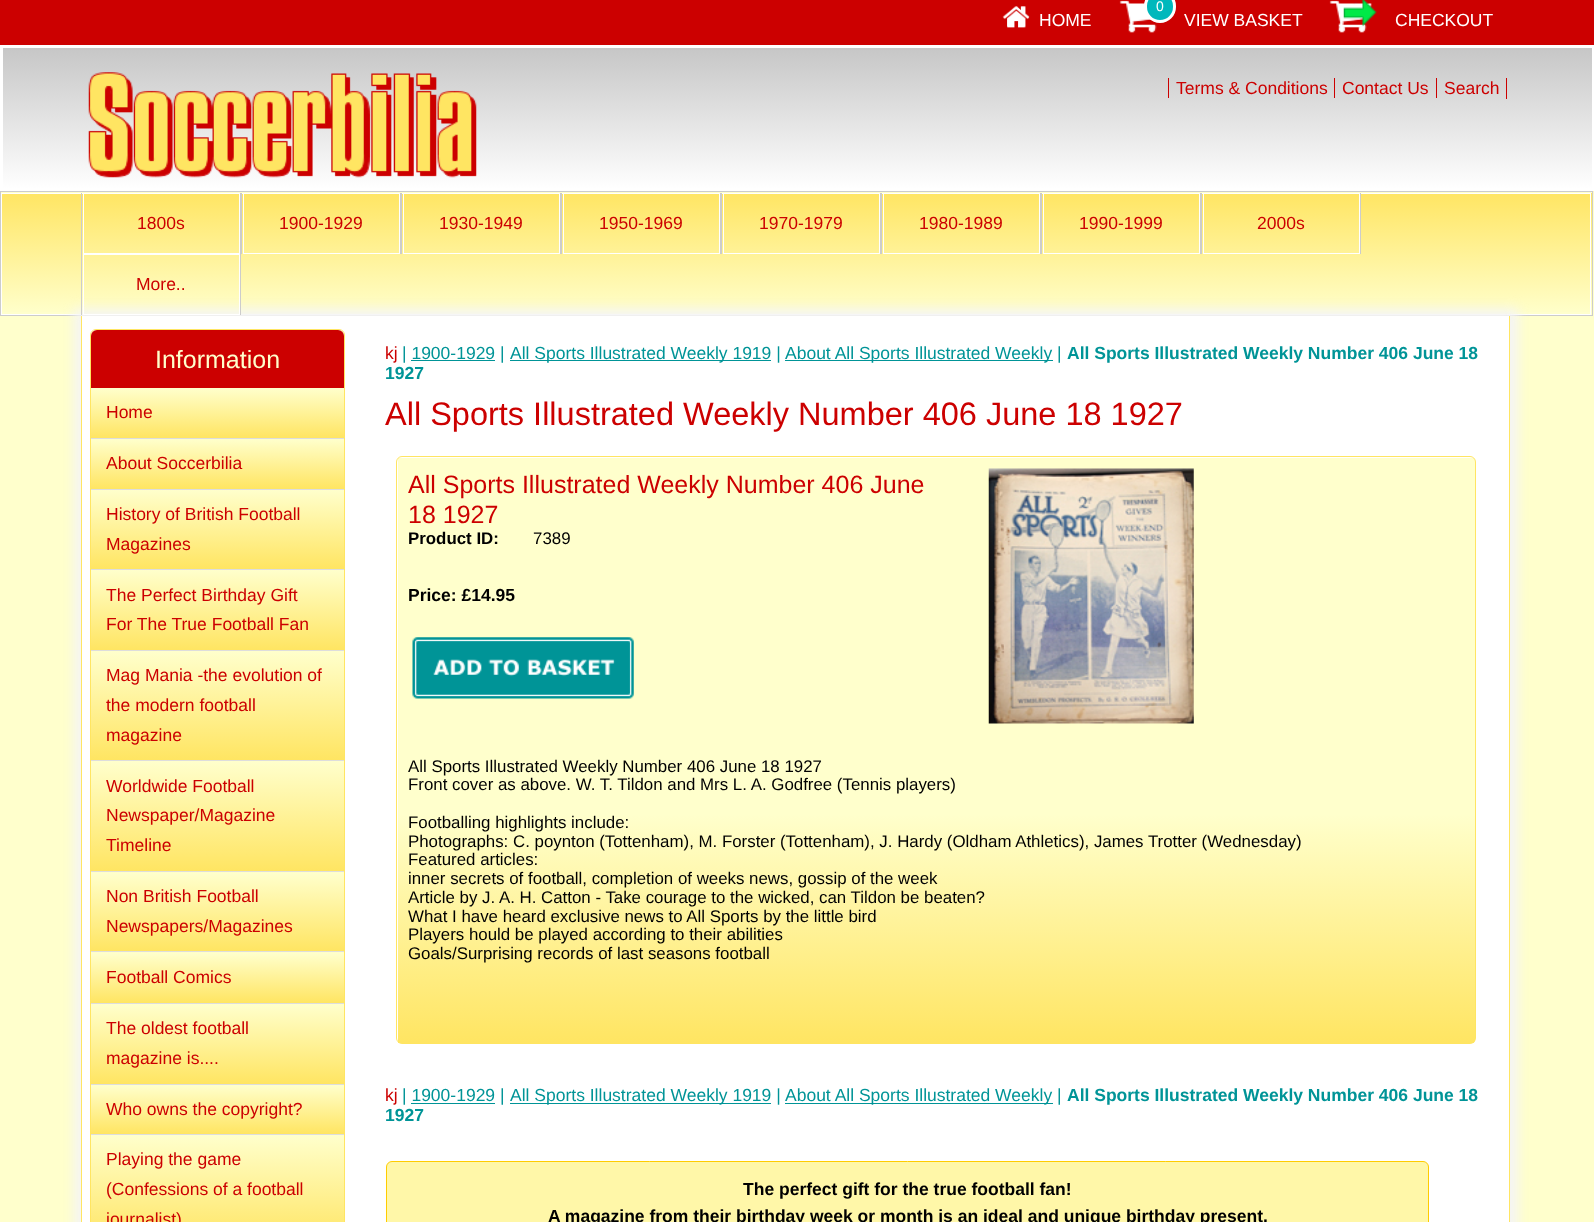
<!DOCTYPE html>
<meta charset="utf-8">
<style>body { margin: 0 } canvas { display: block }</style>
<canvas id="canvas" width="1594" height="1222"></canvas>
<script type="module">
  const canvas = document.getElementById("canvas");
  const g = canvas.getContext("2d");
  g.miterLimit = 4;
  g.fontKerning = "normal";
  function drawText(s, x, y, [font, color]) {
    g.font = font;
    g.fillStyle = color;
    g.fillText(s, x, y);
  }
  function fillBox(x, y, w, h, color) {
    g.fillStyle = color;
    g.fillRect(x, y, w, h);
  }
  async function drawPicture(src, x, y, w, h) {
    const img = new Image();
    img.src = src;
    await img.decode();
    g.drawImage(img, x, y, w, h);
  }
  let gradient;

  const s1 = ["17.5px Liberation Sans", "#FFFFFF"];
  const s2 = ["14px Liberation Sans", "#FFFFFF"];
  const s3 = ["17.5px Liberation Sans", "#CC0000"];
  const s4 = ["25px Liberation Sans", "#FFFFCC"];
  const s5 = ["17.5px Liberation Sans", "#009497"];
  const s6 = ["bold 17.5px Liberation Sans", "#009497"];
  const s7 = ["32.5px Liberation Sans", "#CC0000"];
  const s8 = ["25px Liberation Sans", "#CC0000"];
  const s9 = ["bold 16.88px Liberation Sans", "#000000"];
  const s10 = ["16.88px Liberation Sans", "#000000"];
  const s11 = ["bold 17.5px Liberation Sans", "#000000"];

  fillBox(0, 0, 1594, 1222, "#FFFFFF");
  gradient = g.createLinearGradient(797, -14, 798, 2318);
  gradient.addColorStop(0.03, "#CC0000");
  gradient.addColorStop(0.09, "#FFFFCC");
  gradient.addColorStop(1, "#FFFFCC");
  g.fillStyle = gradient;
  g.fillRect(0, 0, 1594, 1222);
  await drawPicture("pic1.png", 1002, 6, 28, 22);
  drawText("HOME", 1039, 26, s1);
  await drawPicture("pic2.png", 1119, 0, 38, 33);
  g.fillStyle = "#00B8BC";
  g.beginPath();
  g.roundRect(1145.5, -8.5, 29, 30, 14.5);
  g.fill();
  g.strokeStyle = "#FFFFFF";
  g.lineWidth = 3;
  g.stroke();
  drawText("0", 1156, 11, s2);
  drawText("VIEW BASKET", 1184, 26, s1);
  await drawPicture("pic3.png", 1329, 0, 48, 33);
  drawText("CHECKOUT", 1395, 26, s1);
  gradient = g.createLinearGradient(798, 47, 798, 189);
  gradient.addColorStop(0, "#C6C6C6");
  gradient.addColorStop(1, "#FFFFFF");
  g.fillStyle = gradient;
  g.fillRect(3, 48, 1589, 140);
  g.strokeRect(1.5, 46.5, 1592, 143);
  await drawPicture("pic4.png", 88, 72, 389, 106);
  fillBox(1506, 78, 1, 21, "#CC0000");
  drawText("Terms & Conditions", 1176, 94, s3);
  fillBox(1168, 78, 1, 20, "#CC0000");
  drawText("Contact Us", 1342, 94, s3);
  fillBox(1334, 78, 1, 20, "#CC0000");
  drawText("Search", 1444, 94, s3);
  fillBox(1436, 78, 1, 20, "#CC0000");
  gradient = g.createLinearGradient(796, 70, 796, 193);
  gradient.addColorStop(0, "#FFE562");
  gradient.addColorStop(1, "#FFFFCC");
  g.fillStyle = gradient;
  g.fillRect(0, 192, 1593, 1);
  gradient = g.createLinearGradient(796, 192, 796, 315);
  gradient.addColorStop(0, "#FFE562");
  gradient.addColorStop(1, "#FFFFCC");
  g.fillStyle = gradient;
  g.fillRect(2, 193, 1590, 119);
  g.lineWidth = 1;
  g.strokeRect(1.5, 193.5, 1589, 121);
  g.strokeStyle = "#CCCCCC";
  g.strokeRect(0.5, 191.5, 1592, 124);
  g.strokeStyle = "#FFFFFF";
  g.strokeRect(83.5, 193.5, 156, 60);
  fillBox(240, 193, 2, 61, "#CCCCCC");
  g.fillStyle = "#F4F4F4";
  g.filter = "blur(6px)";
  g.beginPath();
  g.rect(74, 309, 1444, 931);
  g.fill();
  g.filter = "none";
  fillBox(81, 193, 1, 122, "#CCCCCC");
  drawText("1800s", 137, 229, s3);
  g.strokeRect(243.5, 193.5, 156, 60);
  fillBox(400, 193, 2, 61, "#CCCCCC");
  drawText("1900-1929", 279, 229, s3);
  g.strokeRect(403.5, 193.5, 156, 60);
  fillBox(560, 193, 2, 61, "#CCCCCC");
  drawText("1930-1949", 439, 229, s3);
  g.strokeRect(563.5, 193.5, 156, 60);
  fillBox(720, 193, 2, 61, "#CCCCCC");
  drawText("1950-1969", 599, 229, s3);
  g.strokeRect(723.5, 193.5, 156, 60);
  fillBox(880, 193, 2, 61, "#CCCCCC");
  drawText("1970-1979", 759, 229, s3);
  g.strokeRect(883.5, 193.5, 156, 60);
  fillBox(1040, 193, 2, 61, "#CCCCCC");
  drawText("1980-1989", 919, 229, s3);
  g.strokeRect(1043.5, 193.5, 156, 60);
  fillBox(1200, 193, 2, 61, "#CCCCCC");
  drawText("1990-1999", 1079, 229, s3);
  g.strokeRect(1203.5, 193.5, 156, 60);
  fillBox(1360, 193, 1, 61, "#CCCCCC");
  drawText("2000s", 1257, 229, s3);
  g.strokeRect(83.5, 254.5, 156, 60);
  fillBox(240, 254, 1, 61, "#CCCCCC");
  drawText("More..", 136, 290, s3);
  fillBox(82, 316, 1427, 906, "#FFFFFF");
  fillBox(1509, 316, 1, 906, "#FFE562");
  fillBox(81, 316, 1, 906, "#FFE562");
  g.beginPath();
  g.moveTo(96, 329.5);
  g.lineTo(339, 329.5);
  g.bezierCurveTo(342, 329.5, 344.5, 332, 344.5, 335);
  g.lineTo(344.5, 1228.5);
  g.lineTo(90.5, 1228.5);
  g.lineTo(90.5, 335);
  g.bezierCurveTo(90.5, 332, 93, 329.5, 96, 329.5);
  g.closePath();
  g.strokeStyle = "#FFE562";
  g.stroke();
  g.fillStyle = "#CC0000";
  g.beginPath();
  g.roundRect(91, 330, 253, 58, [6, 6, 0, 0]);
  g.fill();
  drawText("Information", 155, 368, s4);
  gradient = g.createLinearGradient(218, 388, 218, 438);
  gradient.addColorStop(0, "#FFFFCC");
  gradient.addColorStop(1, "#FFE562");
  g.fillStyle = gradient;
  g.fillRect(91, 388, 253, 50);
  fillBox(91, 438, 253, 1, "#DDDDDD");
  drawText("Home", 106, 418, s3);
  gradient = g.createLinearGradient(218, 439, 218, 489);
  gradient.addColorStop(0, "#FFFFCC");
  gradient.addColorStop(1, "#FFE562");
  g.fillStyle = gradient;
  g.fillRect(91, 439, 253, 50);
  fillBox(91, 489, 253, 1, "#DDDDDD");
  drawText("About Soccerbilia", 106, 469, s3);
  gradient = g.createLinearGradient(218, 490, 218, 569);
  gradient.addColorStop(0, "#FFFFCC");
  gradient.addColorStop(1, "#FFE562");
  g.fillStyle = gradient;
  g.fillRect(91, 490, 253, 79);
  fillBox(91, 569, 253, 1, "#DDDDDD");
  drawText("History of British Football", 106, 520, s3);
  drawText("Magazines", 106, 550, s3);
  gradient = g.createLinearGradient(218, 570, 218, 650);
  gradient.addColorStop(0, "#FFFFCC");
  gradient.addColorStop(1, "#FFE562");
  g.fillStyle = gradient;
  g.fillRect(91, 570, 253, 80);
  fillBox(91, 650, 253, 1, "#DDDDDD");
  drawText("The Perfect Birthday Gift", 106, 601, s3);
  drawText("For The True Football Fan", 106, 630, s3);
  gradient = g.createLinearGradient(218, 651, 218, 760);
  gradient.addColorStop(0, "#FFFFCC");
  gradient.addColorStop(1, "#FFE562");
  g.fillStyle = gradient;
  g.fillRect(91, 651, 253, 109);
  fillBox(91, 760, 253, 1, "#DDDDDD");
  drawText("Mag Mania -the evolution of", 106, 681, s3);
  drawText("the modern football", 106, 711, s3);
  drawText("magazine", 106, 741, s3);
  gradient = g.createLinearGradient(218, 761, 218, 871);
  gradient.addColorStop(0, "#FFFFCC");
  gradient.addColorStop(1, "#FFE562");
  g.fillStyle = gradient;
  g.fillRect(91, 761, 253, 110);
  gradient = g.createLinearGradient(218, 871, 218, 981);
  gradient.addColorStop(0, "#FFFFCC");
  gradient.addColorStop(1, "#FFE562");
  g.fillStyle = gradient;
  g.fillRect(91, 872, 253, 1);
  fillBox(91, 871, 253, 1, "#DDDDDD");
  drawText("Worldwide Football", 106, 792, s3);
  drawText("Newspaper/Magazine", 106, 821, s3);
  drawText("Timeline", 106, 851, s3);
  gradient = g.createLinearGradient(218, 873, 218, 951);
  gradient.addColorStop(0, "#FFFFCC");
  gradient.addColorStop(1, "#FFE562");
  g.fillStyle = gradient;
  g.fillRect(91, 873, 253, 78);
  gradient = g.createLinearGradient(218, 951, 218, 1030);
  gradient.addColorStop(0, "#FFFFCC");
  gradient.addColorStop(1, "#FFE562");
  g.fillStyle = gradient;
  g.fillRect(91, 952, 253, 1);
  fillBox(91, 951, 253, 1, "#DDDDDD");
  drawText("Non British Football", 106, 902, s3);
  drawText("Newspapers/Magazines", 106, 932, s3);
  gradient = g.createLinearGradient(218, 953, 218, 1003);
  gradient.addColorStop(0, "#FFFFCC");
  gradient.addColorStop(1, "#FFE562");
  g.fillStyle = gradient;
  g.fillRect(91, 953, 253, 50);
  fillBox(91, 1003, 253, 1, "#DDDDDD");
  drawText("Football Comics", 106, 983, s3);
  gradient = g.createLinearGradient(218, 1004, 218, 1084);
  gradient.addColorStop(0, "#FFFFCC");
  gradient.addColorStop(1, "#FFE562");
  g.fillStyle = gradient;
  g.fillRect(91, 1004, 253, 80);
  fillBox(91, 1084, 253, 1, "#DDDDDD");
  drawText("The oldest football", 106, 1034, s3);
  drawText("magazine is....", 106, 1064, s3);
  gradient = g.createLinearGradient(218, 1085, 218, 1134);
  gradient.addColorStop(0, "#FFFFCC");
  gradient.addColorStop(1, "#FFE562");
  g.fillStyle = gradient;
  g.fillRect(91, 1085, 253, 49);
  fillBox(91, 1134, 253, 1, "#DDDDDD");
  drawText("Who owns the copyright?", 106, 1115, s3);
  gradient = g.createLinearGradient(218, 1135, 218, 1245);
  gradient.addColorStop(0, "#FFFFCC");
  gradient.addColorStop(1, "#FFE562");
  g.fillStyle = gradient;
  g.fillRect(91, 1135, 253, 87);
  drawText("Playing the game", 106, 1165, s3);
  drawText("(Confessions of a football", 106, 1195, s3);
  drawText("journalist)", 106, 1225, s3);
  drawText("kj", 385, 359, s3);
  drawText("| 1900-1929 |", 402, 359, s5);
  fillBox(510, 360, 261, 1, "#009497");
  drawText("All Sports Illustrated Weekly 1919 |", 510, 359, s5);
  fillBox(785, 360, 268, 1, "#009497");
  drawText("About All Sports Illustrated Weekly |", 785, 359, s5);
  drawText("All Sports Illustrated Weekly Number 406 June 18", 1067, 359, s6);
  fillBox(411, 360, 84, 1, "#009497");
  drawText("1927", 385, 379, s6);
  drawText("All Sports Illustrated Weekly Number 406 June 18 1927", 385, 425, s7);
  g.save();
  g.beginPath();
  g.roundRect(396, 456, 1080, 588, 6);
  g.clip();
  gradient = g.createLinearGradient(936, 457, 936, 1043);
  gradient.addColorStop(0.61, "#FFFFCC");
  gradient.addColorStop(1, "#FFE562");
  g.fillStyle = gradient;
  g.fillRect(398, 458, 1077, 585);
  g.restore();
  g.beginPath();
  g.roundRect(396.5, 456.5, 1079, 587, 5.5);
  g.stroke();
  drawText("All Sports Illustrated Weekly Number 406 June", 408, 493, s8);
  drawText("18 1927", 408, 523, s8);
  drawText("Product ID:", 408, 544, s9);
  drawText("7389", 533, 544, s10);
  drawText("Price: £14.95", 408, 601, s11);
  await drawPicture("pic5.png", 412, 637, 222, 62);
  await drawPicture("pic6.png", 988, 468, 206, 256);
  drawText("All Sports Illustrated Weekly Number 406 June 18 1927", 408, 772, s10);
  drawText("Front cover as above. W. T. Tildon and Mrs L. A. Godfree (Tennis players)", 408, 790, s10);
  drawText("Footballing highlights include:", 408, 828, s10);
  drawText("Photographs: C. poynton (Tottenham), M. Forster (Tottenham), J. Hardy (Oldham Athletics), James Trotter (Wednesday)", 408, 847, s10);
  drawText("Featured articles:", 408, 865, s10);
  drawText("inner secrets of football, completion of weeks news, gossip of the week", 408, 884, s10);
  drawText("Article by J. A. H. Catton - Take courage to the wicked, can Tildon be beaten?", 408, 903, s10);
  drawText("What I have heard exclusive news to All Sports by the little bird", 408, 922, s10);
  drawText("Players hould be played according to their abilities", 408, 940, s10);
  drawText("Goals/Surprising records of last seasons football", 408, 959, s10);
  drawText("kj", 385, 1101, s3);
  drawText("| 1900-1929 |", 402, 1101, s5);
  fillBox(510, 1103, 261, 1, "#009497");
  drawText("All Sports Illustrated Weekly 1919 |", 510, 1101, s5);
  fillBox(785, 1103, 268, 1, "#009497");
  drawText("About All Sports Illustrated Weekly |", 785, 1101, s5);
  drawText("All Sports Illustrated Weekly Number 406 June 18", 1067, 1101, s6);
  fillBox(411, 1103, 84, 1, "#009497");
  drawText("1927", 385, 1121, s6);
  g.fillStyle = "#FFF7A8";
  g.beginPath();
  g.roundRect(386.5, 1161.5, 1042, 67, 5.5);
  g.fill();
  g.strokeStyle = "#FFCC00";
  g.stroke();
  drawText("The perfect gift for the true football fan!", 743, 1195, s11);
  drawText("A magazine from their birthday week or month is an ideal and unique birthday present.", 548, 1222, s11);
</script>
